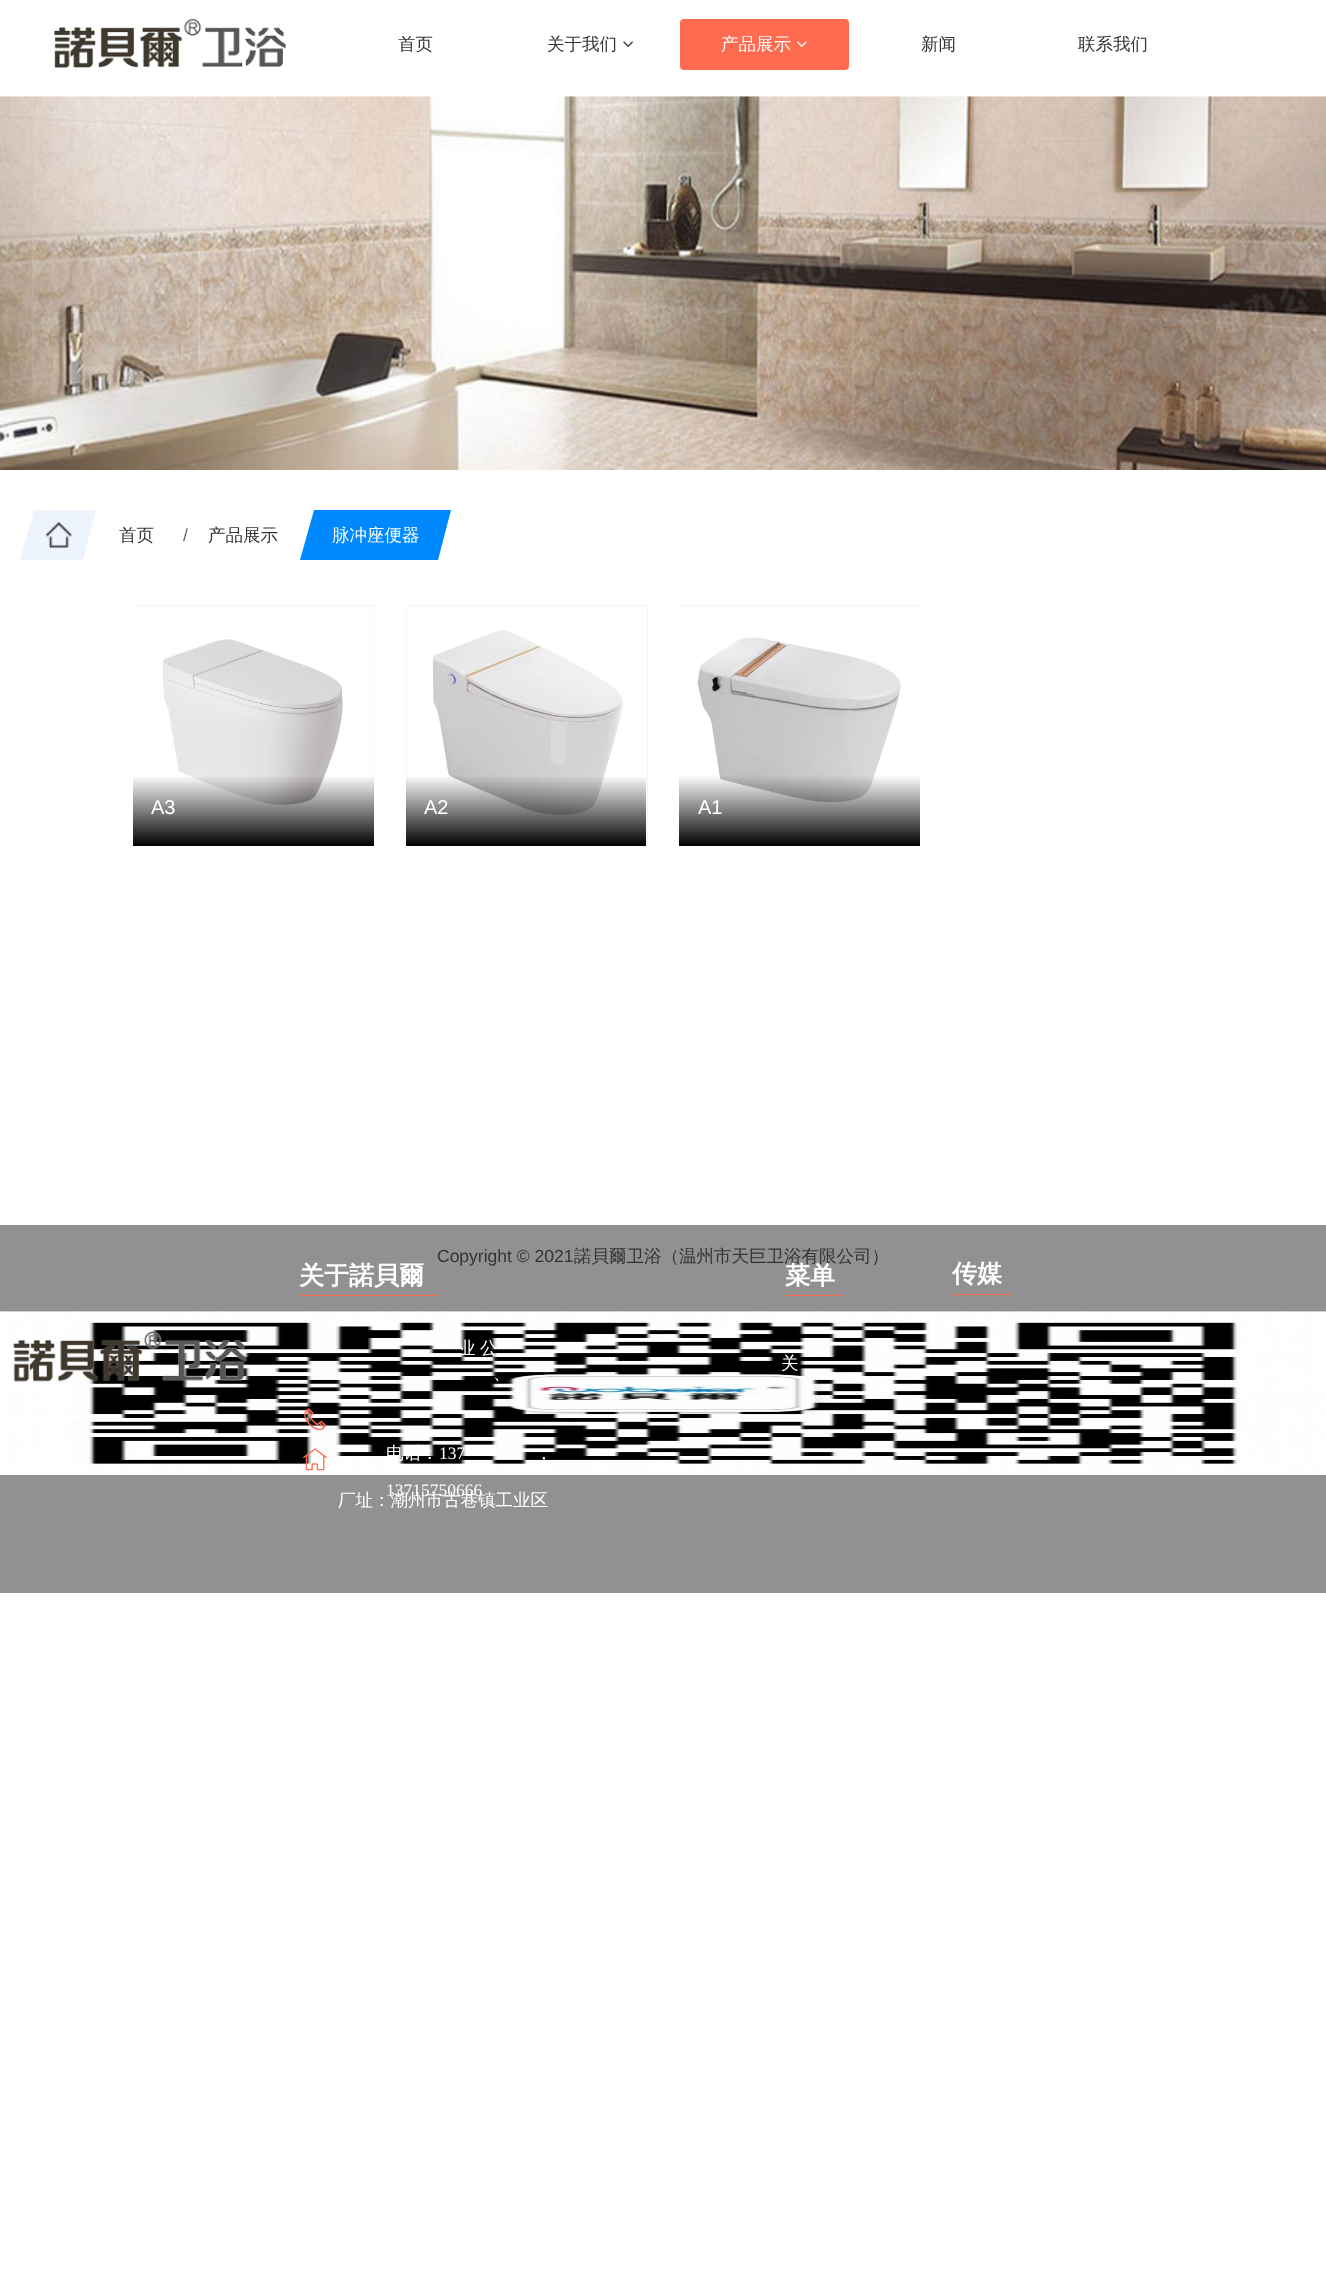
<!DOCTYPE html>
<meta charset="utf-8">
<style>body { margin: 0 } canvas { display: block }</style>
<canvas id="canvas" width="1326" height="2271"></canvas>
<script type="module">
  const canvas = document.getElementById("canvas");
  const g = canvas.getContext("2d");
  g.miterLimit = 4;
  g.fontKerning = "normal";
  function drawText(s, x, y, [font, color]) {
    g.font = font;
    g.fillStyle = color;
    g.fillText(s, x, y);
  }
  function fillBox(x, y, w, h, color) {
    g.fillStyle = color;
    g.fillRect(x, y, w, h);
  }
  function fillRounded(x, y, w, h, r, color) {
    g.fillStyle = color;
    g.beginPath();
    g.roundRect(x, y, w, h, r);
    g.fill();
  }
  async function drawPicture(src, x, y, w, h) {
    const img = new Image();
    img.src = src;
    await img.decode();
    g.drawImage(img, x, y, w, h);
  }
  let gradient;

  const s1 = ["500 17.5px WenQuanYi Zen Hei", "#333333"];
  const s2 = ["500 17.5px WenQuanYi Zen Hei", "#FFFFFF"];
  const s3 = ["17.5px Liberation Sans", "#666666"];
  const s4 = ["20px Liberation Sans", "#FFFFFF"];
  const s5 = ["17.5px Liberation Sans", "#333333"];
  const s6 = ["bold 25px WenQuanYi Zen Hei", "#FFFFFF"];
  const s7 = ["17.5px Liberation Serif", "#FFFFFF"];

  fillBox(0, 0, 1326, 2271, "#FFFFFF");
  await drawPicture("pic1.png", 54, 18, 232, 51);
  drawText("首页", 398, 50, s1);
  drawText("关于我们", 547, 50, s1);
  await drawPicture("pic2.png", 623, 41, 10, 6);
  fillRounded(680, 19, 169, 51, 4, "#FF6B4F");
  drawText("产品展示", 721, 50, s2);
  await drawPicture("pic3.png", 797, 41, 10, 6);
  drawText("新闻", 921, 50, s1);
  drawText("联系我们", 1078, 50, s1);
  await drawPicture("pic4.png", 0, 96, 1326, 374);
  g.fillStyle = "#EEF4FB";
  g.beginPath();
  g.moveTo(34, 510);
  g.lineTo(96, 510);
  g.lineTo(83, 560);
  g.lineTo(20, 560);
  g.closePath();
  g.fill();
  await drawPicture("pic5.png", 46, 522, 26, 26);
  drawText("首页", 119, 541, s1);
  drawText("/", 183, 541, s3);
  drawText("产品展示", 208, 541, s1);
  g.fillStyle = "#0088FF";
  g.beginPath();
  g.moveTo(314, 510);
  g.lineTo(451, 510);
  g.lineTo(438, 560);
  g.lineTo(300, 560);
  g.closePath();
  g.fill();
  drawText("脉冲座便器", 332, 541, s2);
  fillBox(133, 605, 241, 241, "#EEEEEE");
  await drawPicture("pic6.png", 133, 605, 241, 241);
  gradient = g.createLinearGradient(254, 846, 254, 775);
  gradient.addColorStop(0, "#000000");
  gradient.addColorStop(1, "rgba(0, 0, 0, 0)");
  g.fillStyle = gradient;
  g.fillRect(133, 777, 241, 69);
  drawText("A3", 151, 814, s4);
  fillBox(406, 605, 242, 241, "#EEEEEE");
  await drawPicture("pic7.png", 406, 605, 242, 241);
  gradient = g.createLinearGradient(526, 846, 526, 775);
  gradient.addColorStop(0, "#000000");
  gradient.addColorStop(1, "rgba(0, 0, 0, 0)");
  g.fillStyle = gradient;
  g.fillRect(406, 777, 240, 69);
  drawText("A2", 424, 814, s4);
  fillBox(679, 605, 241, 1, "#EEEEEE");
  await drawPicture("pic8.png", 679, 605, 241, 241);
  drawText("A1", 698, 814, s4);
  fillBox(0, 1225, 1326, 368, "#939092");
  drawText("Copyright © 2021", 437, 1262, s5);
  drawText("諾貝爾卫浴（温州市天巨卫浴有限公司）", 574, 1262, s1);
  fillBox(299, 1295, 139, 1, "#FF6B4F");
  drawText("关于諾貝爾", 299, 1284, s6);
  fillBox(785, 1295, 58, 1, "#FF6B4F");
  drawText("菜单", 785, 1284, s6);
  fillBox(951, 1294, 60, 1, "#FF6B4F");
  drawText("传媒", 952, 1282, s6);
  await drawPicture("pic9.png", 0, 1311, 1326, 164);
  await drawPicture("pic10.png", 13, 1331, 234, 51);
  drawText("业", 458, 1354, s2);
  drawText("公", 480, 1354, s2);
  drawText("、", 493, 1379, s2);
  drawText("关", 781, 1369, s2);
  await drawPicture("pic11.png", 304, 1408, 22, 23);
  await drawPicture("pic12.png", 303, 1448, 24, 23);
  drawText("电话：", 386, 1459, s2);
  drawText("137", 439, 1459, s7);
  drawText("，", 535, 1459, s2);
  drawText("厂址：潮州市古巷镇工业区", 338, 1506, s2);
  drawText("13715750666", 386, 1496, s7);
</script>
